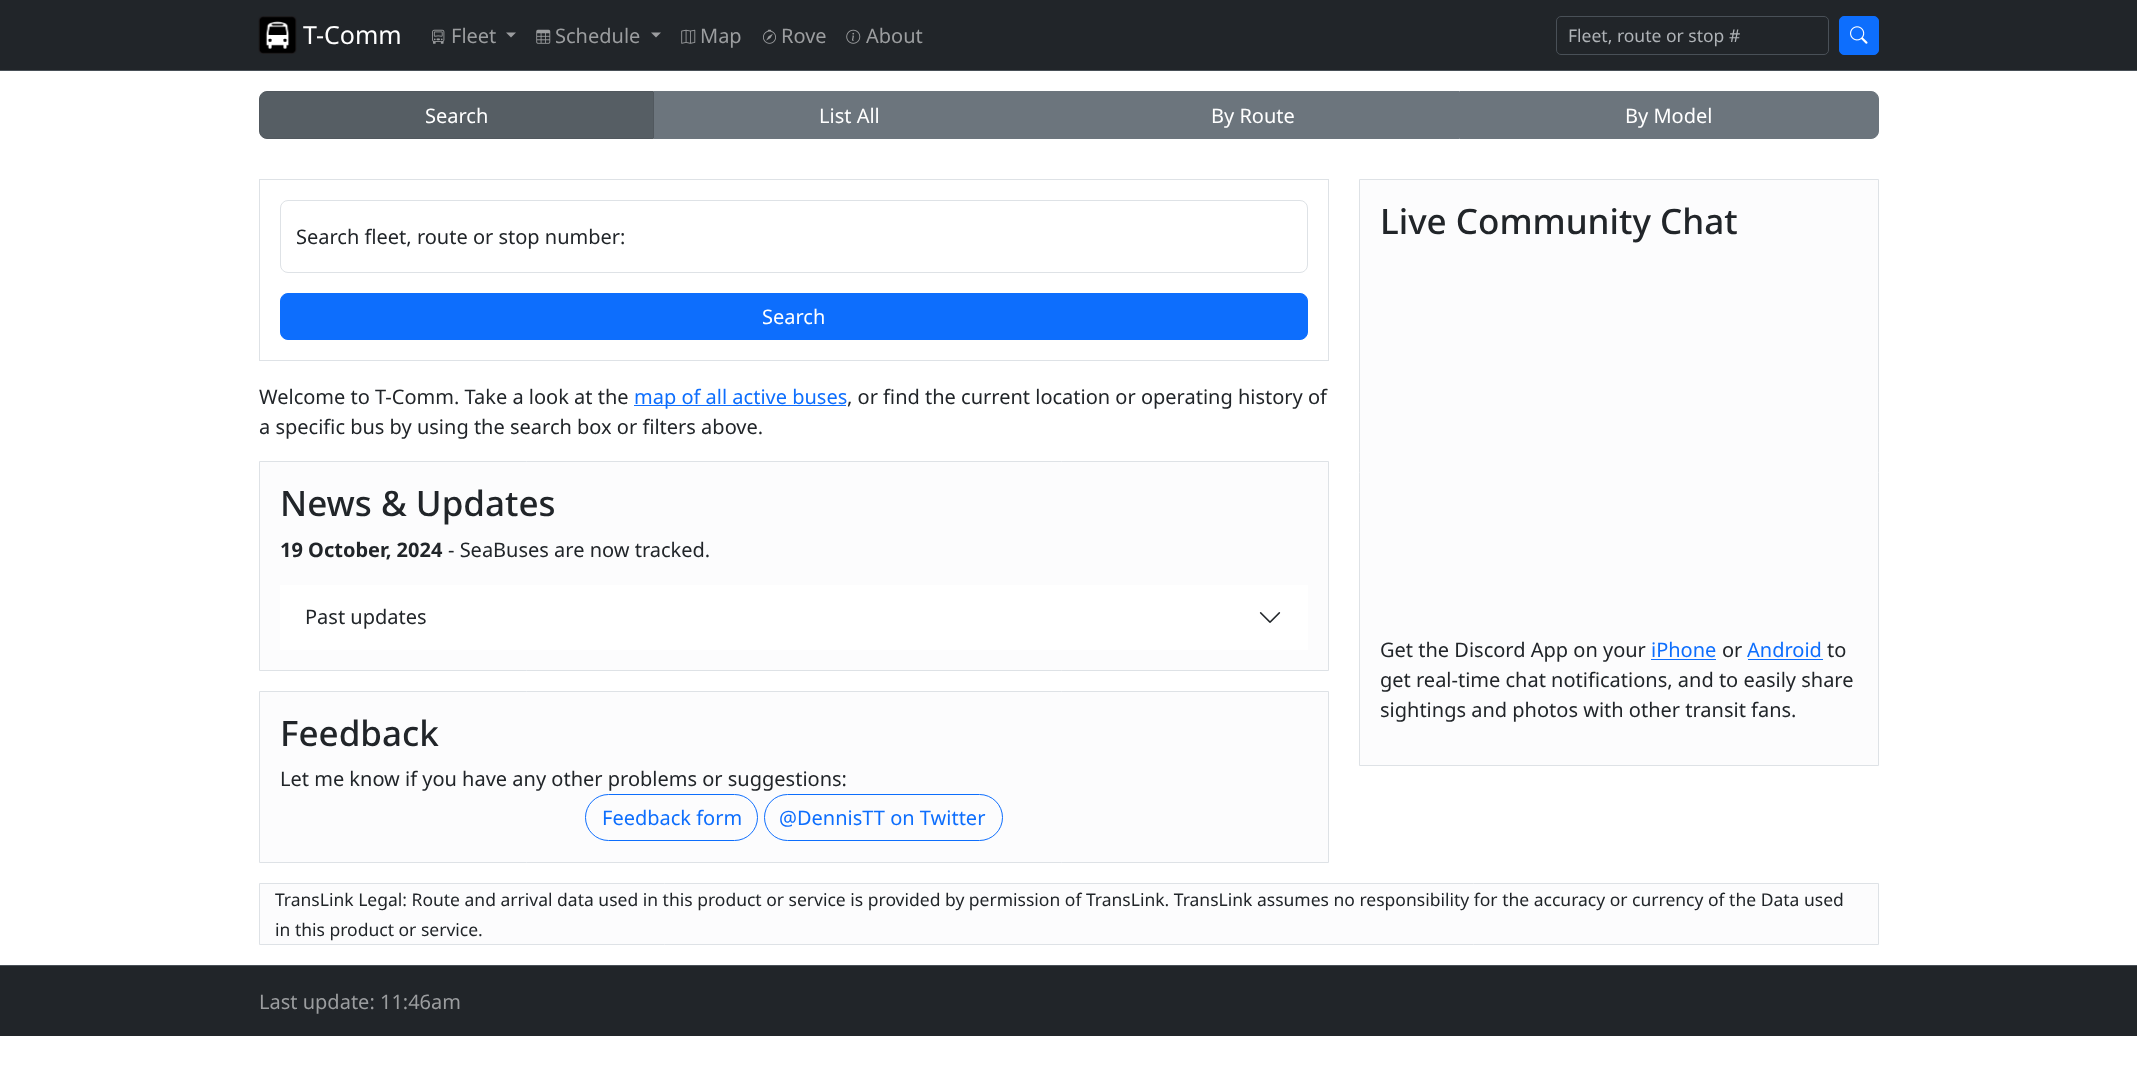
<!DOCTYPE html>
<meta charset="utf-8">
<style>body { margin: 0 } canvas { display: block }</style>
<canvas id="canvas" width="2137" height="1089"></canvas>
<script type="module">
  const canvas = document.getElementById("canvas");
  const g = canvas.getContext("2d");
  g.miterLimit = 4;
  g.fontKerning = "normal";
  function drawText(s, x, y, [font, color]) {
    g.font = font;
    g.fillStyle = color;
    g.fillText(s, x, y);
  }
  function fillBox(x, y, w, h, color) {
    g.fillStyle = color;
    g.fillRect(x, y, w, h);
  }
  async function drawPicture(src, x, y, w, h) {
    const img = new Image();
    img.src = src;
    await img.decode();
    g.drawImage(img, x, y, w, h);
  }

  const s1 = ["25px Noto Sans", "#FFFFFF"];
  const s2 = ["20px Noto Sans", "#9B9D9F"];
  const s3 = ["17.5px Noto Sans", "#AFB3B7"];
  const s4 = ["20px Noto Sans", "#FFFFFF"];
  const s5 = ["20px Noto Sans", "#212529"];
  const s6 = ["20px Noto Sans", "#0D6EFD"];
  const s7 = ["500 35px Noto Sans", "#212529"];
  const s8 = ["bold 20px Noto Sans", "#212529"];
  const s9 = ["17.5px Noto Sans", "#212529"];

  fillBox(0, 0, 2137, 1089, "#FFFFFF");
  fillBox(0, 0, 2137, 70, "#212529");
  fillBox(0, 70, 2137, 1, "#495057");
  await drawPicture("pic1.png", 258, 16, 39, 38);
  drawText("T-Comm", 303, 44, s1);
  await drawPicture("pic2.png", 432, 29, 13, 15);
  drawText("Fleet", 451, 43, s2);
  g.beginPath();
  g.moveTo(506, 32.5);
  g.lineTo(516, 32.5);
  g.lineTo(511, 37.5);
  g.closePath();
  g.fill();
  await drawPicture("pic3.png", 536, 29, 15, 15);
  drawText("Schedule", 555, 43, s2);
  g.beginPath();
  g.moveTo(651, 32.5);
  g.lineTo(661, 32.5);
  g.lineTo(656, 37.5);
  g.closePath();
  g.fill();
  await drawPicture("pic4.png", 681, 29, 15, 15);
  drawText("Map", 700, 43, s2);
  await drawPicture("pic5.png", 763, 29, 13, 15);
  drawText("Rove", 781, 43, s2);
  await drawPicture("pic6.png", 846, 29, 15, 15);
  drawText("About", 866, 43, s2);
  g.beginPath();
  g.roundRect(1556.5, 16.5, 272, 38, 4.5);
  g.strokeStyle = "#495057";
  g.stroke();
  drawText("Fleet, route or stop #", 1568, 42, s3);
  g.fillStyle = "#0D6EFD";
  g.beginPath();
  g.roundRect(1839.5, 16.5, 39, 38, 4.5);
  g.fill();
  g.strokeStyle = "#0D6EFD";
  g.stroke();
  await drawPicture("pic7.png", 1850, 26, 18, 18);
  g.fillStyle = "#565E64";
  g.beginPath();
  g.roundRect(259.5, 91.5, 394, 47, [7.5, 0, 0, 7.5]);
  g.fill();
  g.strokeStyle = "#51585E";
  g.stroke();
  drawText("Search", 425, 123, s4);
  fillBox(654, 91, 805, 48, "#6C757D");
  drawText("List All", 819, 123, s4);
  drawText("By Route", 1211, 123, s4);
  g.fillStyle = "#6C757D";
  g.beginPath();
  g.roundRect(1459.5, 91.5, 419, 47, [0, 7.5, 7.5, 0]);
  g.fill();
  g.strokeStyle = "#6C757D";
  g.stroke();
  drawText("By Model", 1625, 123, s4);
  g.strokeStyle = "#DEE2E6";
  g.strokeRect(259.5, 179.5, 1069, 181);
  g.beginPath();
  g.roundRect(280.5, 200.5, 1027, 72, 7.5);
  g.stroke();
  drawText("S‍e‍a‍r‍c‍h‍ ‍f‍l‍e‍e‍t‍,‍ ‍r‍o‍u‍t‍e‍ ‍o‍r‍ ‍s‍t‍o‍p‍ ‍n‍u‍m‍b‍e‍r‍:‍", 296, 244, s5);
  g.fillStyle = "#0D6EFD";
  g.beginPath();
  g.roundRect(280.5, 293.5, 1027, 46, 7.5);
  g.fill();
  g.strokeStyle = "#0D6EFD";
  g.stroke();
  drawText("Search", 762, 324, s4);
  drawText("Welcome to T-Comm. Take a look at the", 259, 404, s5);
  fillBox(634, 405, 212, 1, "#0D6EFD");
  drawText("map of all active buses", 634, 404, s6);
  drawText(", or find the current location or operating history of", 847, 404, s5);
  drawText("a specific bus by using the search box or filters above.", 259, 434, s5);
  g.fillStyle = "#FCFCFD";
  g.beginPath();
  g.rect(259.5, 461.5, 1069, 209);
  g.fill();
  g.strokeStyle = "#DEE2E6";
  g.stroke();
  drawText("News & Updates", 280, 516, s7);
  drawText("19 October, 2024", 280, 557, s8);
  drawText("- SeaBuses are now tracked.", 448, 557, s5);
  fillBox(280, 585, 1028, 65, "#FFFFFF");
  drawText("Past updates", 305, 624, s5);
  await drawPicture("pic8.png", 1259, 612, 22, 11);
  g.fillStyle = "#FCFCFD";
  g.beginPath();
  g.rect(259.5, 691.5, 1069, 171);
  g.fill();
  g.stroke();
  drawText("Feedback", 280, 746, s7);
  drawText("Let me know if you have any other problems or suggestions:", 280, 786, s5);
  g.beginPath();
  g.roundRect(585.5, 794.5, 172, 46, 23);
  g.strokeStyle = "#0D6EFD";
  g.stroke();
  drawText("Feedback form", 602, 825, s6);
  g.beginPath();
  g.roundRect(764.5, 794.5, 238, 46, 23);
  g.stroke();
  drawText("@DennisTT on Twitter", 779, 825, s6);
  g.fillStyle = "#FCFCFD";
  g.beginPath();
  g.rect(1359.5, 179.5, 519, 586);
  g.fill();
  g.strokeStyle = "#DEE2E6";
  g.stroke();
  drawText("Live Community Chat", 1380, 234, s7);
  drawText("Get the Discord App on your", 1380, 657, s5);
  drawText("iPhone", 1651, 657, s6);
  fillBox(1651, 659, 65, 1, "#0D6EFD");
  drawText("or", 1722, 657, s5);
  drawText("Android", 1747, 657, s6);
  fillBox(1748, 659, 75, 1, "#0D6EFD");
  drawText("to", 1827, 657, s5);
  drawText("get real-time chat notifications, and to easily share", 1380, 687, s5);
  drawText("sightings and photos with other transit fans.", 1380, 717, s5);
  g.fillStyle = "#FCFCFD";
  g.beginPath();
  g.rect(259.5, 883.5, 1619, 61);
  g.fill();
  g.stroke();
  drawText("TransLink Legal: Route and arrival data used in this product or service is provided by permission of TransLink. TransLink assumes no responsibility for the accuracy or currency of the Data used", 275, 906, s9);
  drawText("in this product or service.", 275, 936, s9);
  fillBox(0, 966, 2137, 70, "#212529");
  fillBox(0, 965, 2137, 1, "#495057");
  drawText("Last update: 11:46am", 259, 1009, s2);
</script>
